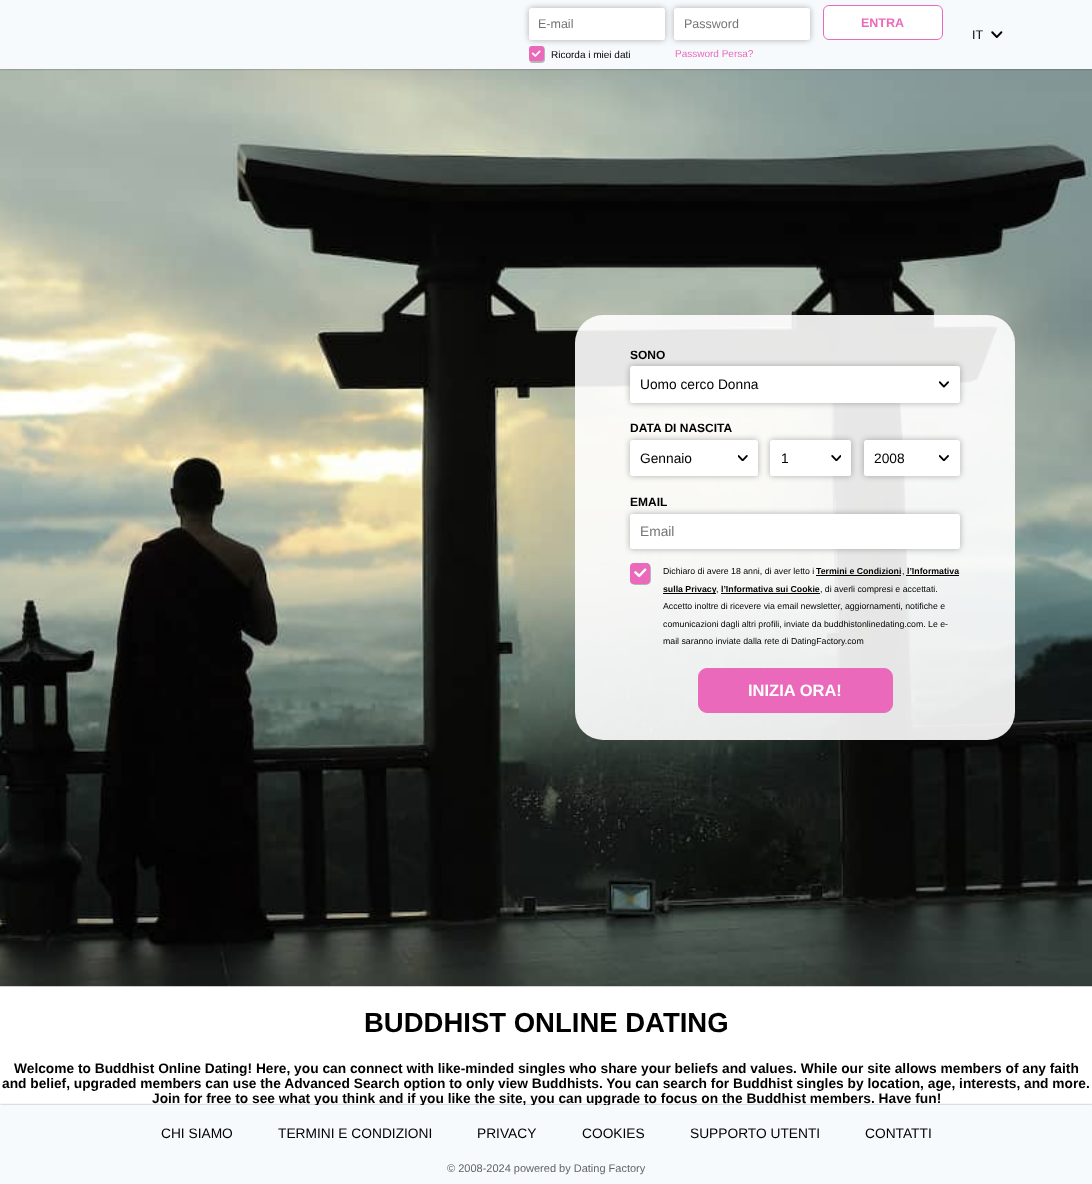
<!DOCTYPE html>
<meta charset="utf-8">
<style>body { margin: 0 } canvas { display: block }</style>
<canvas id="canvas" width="1092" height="1184"></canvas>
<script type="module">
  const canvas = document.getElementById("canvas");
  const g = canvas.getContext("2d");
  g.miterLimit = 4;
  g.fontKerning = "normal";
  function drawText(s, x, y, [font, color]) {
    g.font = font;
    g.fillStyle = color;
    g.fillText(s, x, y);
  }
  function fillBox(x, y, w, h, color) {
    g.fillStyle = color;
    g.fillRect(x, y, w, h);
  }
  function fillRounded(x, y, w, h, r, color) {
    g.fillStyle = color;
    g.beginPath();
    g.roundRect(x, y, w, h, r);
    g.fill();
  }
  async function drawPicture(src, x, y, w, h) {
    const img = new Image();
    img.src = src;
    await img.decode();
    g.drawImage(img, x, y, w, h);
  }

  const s1 = ["12.5px Liberation Sans", "#757575"];
  const s2 = ["10px Liberation Sans", "#000000"];
  const s3 = ["10px Liberation Sans", "#EB69BB"];
  const s4 = ["bold 12.5px Liberation Sans", "#EB69BB"];
  const s5 = ["12.5px Liberation Sans", "#000000"];
  const s6 = ["bold 12px Liberation Sans", "#000000"];
  const s7 = ["13.75px Liberation Sans", "#000000"];
  const s8 = ["13.75px Liberation Sans", "#757575"];
  const s9 = ["8.75px Liberation Sans", "#000000"];
  const s10 = ["bold 8.75px Liberation Sans", "#000000"];
  const s11 = ["bold 16.5px Liberation Sans", "#FFFFFF"];
  const s12 = ["bold 27.5px Liberation Sans", "#000000"];
  const s13 = ["bold 13.75px Liberation Sans", "#000000"];
  const s14 = ["11px Liberation Sans", "#636465"];

  fillBox(0, 0, 1092, 1184, "#FFFFFF");
  await drawPicture("pic3.png", 0, 69, 1092, 918);
  g.fillStyle = "rgba(0, 0, 0, 0.4)";
  g.filter = "blur(1px)";
  g.beginPath();
  g.rect(0, 0, 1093, 69);
  g.fill();
  g.filter = "none";
  fillBox(0, 0, 1092, 69, "#F7FAFD");
  g.fillStyle = "rgba(0, 0, 0, 0.3)";
  g.filter = "blur(3px)";
  g.beginPath();
  g.roundRect(529, 8, 136, 32, 2.5);
  g.fill();
  g.filter = "none";
  fillRounded(529, 8, 136, 32, 2.5, "#FFFFFF");
  drawText("E-mail", 538, 28, s1);
  g.fillStyle = "rgba(0, 0, 0, 0.3)";
  g.filter = "blur(3px)";
  g.beginPath();
  g.roundRect(674, 8, 136, 32, 2.5);
  g.fill();
  g.filter = "none";
  fillRounded(674, 8, 136, 32, 2.5, "#FFFFFF");
  drawText("Password", 684, 28, s1);
  g.fillStyle = "#B6B6B6";
  g.filter = "blur(0.5px)";
  g.beginPath();
  g.roundRect(529, 46, 16, 17, 4);
  g.fill();
  g.filter = "none";
  fillRounded(529, 46, 15, 15, 3, "#EB69BB");
  await drawPicture("pic1.png", 531, 50, 10, 7);
  drawText("Ricorda i miei dati", 551, 58, s2);
  drawText("Password Persa?", 675, 57, s3);
  g.fillStyle = "#FFFFFF";
  g.beginPath();
  g.roundRect(823.5, 5.5, 119, 34, 5.5);
  g.fill();
  g.strokeStyle = "#EB69BB";
  g.stroke();
  drawText("ENTRA", 861, 27, s4);
  drawText("IT", 972, 39, s5);
  await drawPicture("pic2.png", 991, 31, 12, 7);
  fillRounded(575, 315, 440, 425, 28, "rgba(255, 255, 255, 0.9)");
  drawText("SONO", 630, 359, s6);
  g.fillStyle = "rgba(0, 0, 0, 0.3)";
  g.filter = "blur(3px)";
  g.beginPath();
  g.roundRect(630, 366, 330, 37, 2.5);
  g.fill();
  g.filter = "none";
  fillRounded(630, 366, 330, 37, 2.5, "#FFFFFF");
  await drawPicture("pic4.png", 939, 381, 10, 7);
  drawText("Uomo cerco Donna", 640, 389, s7);
  drawText("DATA DI NASCITA", 630, 432, s6);
  g.fillStyle = "rgba(0, 0, 0, 0.3)";
  g.filter = "blur(3px)";
  g.beginPath();
  g.roundRect(630, 440, 128, 36, 2.5);
  g.fill();
  g.filter = "none";
  fillRounded(630, 440, 128, 36, 2.5, "#FFFFFF");
  await drawPicture("pic5.png", 738, 455, 10, 6);
  drawText("Gennaio", 640, 463, s7);
  g.fillStyle = "rgba(0, 0, 0, 0.3)";
  g.filter = "blur(3px)";
  g.beginPath();
  g.roundRect(770, 440, 81, 36, 2.5);
  g.fill();
  g.filter = "none";
  fillRounded(770, 440, 81, 36, 2.5, "#FFFFFF");
  await drawPicture("pic6.png", 831, 455, 10, 6);
  drawText("1", 781, 463, s7);
  g.fillStyle = "rgba(0, 0, 0, 0.3)";
  g.filter = "blur(3px)";
  g.beginPath();
  g.roundRect(864, 440, 96, 36, 2.5);
  g.fill();
  g.filter = "none";
  fillRounded(864, 440, 96, 36, 2.5, "#FFFFFF");
  await drawPicture("pic7.png", 939, 455, 10, 6);
  drawText("2008", 874, 463, s7);
  drawText("EMAIL", 630, 506, s6);
  g.fillStyle = "rgba(0, 0, 0, 0.3)";
  g.filter = "blur(3px)";
  g.beginPath();
  g.roundRect(630, 514, 330, 35, 2.5);
  g.fill();
  g.filter = "none";
  fillRounded(630, 514, 330, 35, 2.5, "#FFFFFF");
  drawText("Email", 640, 536, s8);
  g.fillStyle = "#B6B6B6";
  g.filter = "blur(0.5px)";
  g.beginPath();
  g.roundRect(630, 563, 21, 22, 5);
  g.fill();
  g.filter = "none";
  fillRounded(630, 563, 20, 21, 4, "#EB69BB");
  await drawPicture("pic8.png", 634, 568, 13, 10);
  drawText("Dichiaro di avere 18 anni, di aver letto i", 663, 574, s9);
  drawText("Termini e Condizioni", 816, 574, s10);
  fillBox(816, 575, 85, 1, "#000000");
  drawText(",", 902, 574, s9);
  drawText("l’Informativa", 907, 574, s10);
  fillBox(906, 575, 53, 1, "#000000");
  fillBox(663, 593, 53, 1, "#000000");
  drawText("sulla Privacy", 663, 592, s10);
  drawText(",", 716, 592, s9);
  drawText("l’Informativa sui Cookie", 721, 592, s10);
  fillBox(721, 593, 99, 1, "#000000");
  drawText(", di averli compresi e accettati.", 820, 592, s9);
  drawText("Accetto inoltre di ricevere via email newsletter, aggiornamenti, notifiche e", 663, 609, s9);
  drawText("comunicazioni dagli altri profili, inviate da buddhistonlinedating.com. Le e-", 663, 627, s9);
  drawText("mail saranno inviate dalla rete di DatingFactory.com", 663, 644, s9);
  g.fillStyle = "#EB69BB";
  g.beginPath();
  g.roundRect(698.5, 668.5, 194, 44, 8.5);
  g.fill();
  g.stroke();
  drawText("INIZIA ORA!", 748, 696, s11);
  drawText("BUDDHIST ONLINE DATING", 364, 1032, s12);
  drawText("Welcome to Buddhist Online Dating! Here, you can connect with like-minded singles who share your beliefs and values. While our site allows members of any faith", 14, 1073, s13);
  drawText("and belief, upgraded members can use the Advanced Search option to only view Buddhists. You can search for Buddhist singles by location, age, interests, and more.", 2, 1088, s13);
  drawText("Join for free to see what you think and if you like the site, you can upgrade to focus on the Buddhist members. Have fun!", 152, 1103, s13);
  g.fillStyle = "rgba(0, 0, 0, 0.4)";
  g.filter = "blur(1px)";
  g.beginPath();
  g.rect(0, 1105, 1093, 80);
  g.fill();
  g.filter = "none";
  fillBox(0, 1105, 1092, 79, "#F7FAFD");
  drawText("CHI SIAMO", 161, 1138, s7);
  drawText("TERMINI E CONDIZIONI", 278, 1138, s7);
  drawText("PRIVACY", 477, 1138, s7);
  drawText("COOKIES", 582, 1138, s7);
  drawText("SUPPORTO UTENTI", 690, 1138, s7);
  drawText("CONTATTI", 865, 1138, s7);
  drawText("© 2008-2024 powered by Dating Factory", 447, 1172, s14);
</script>
